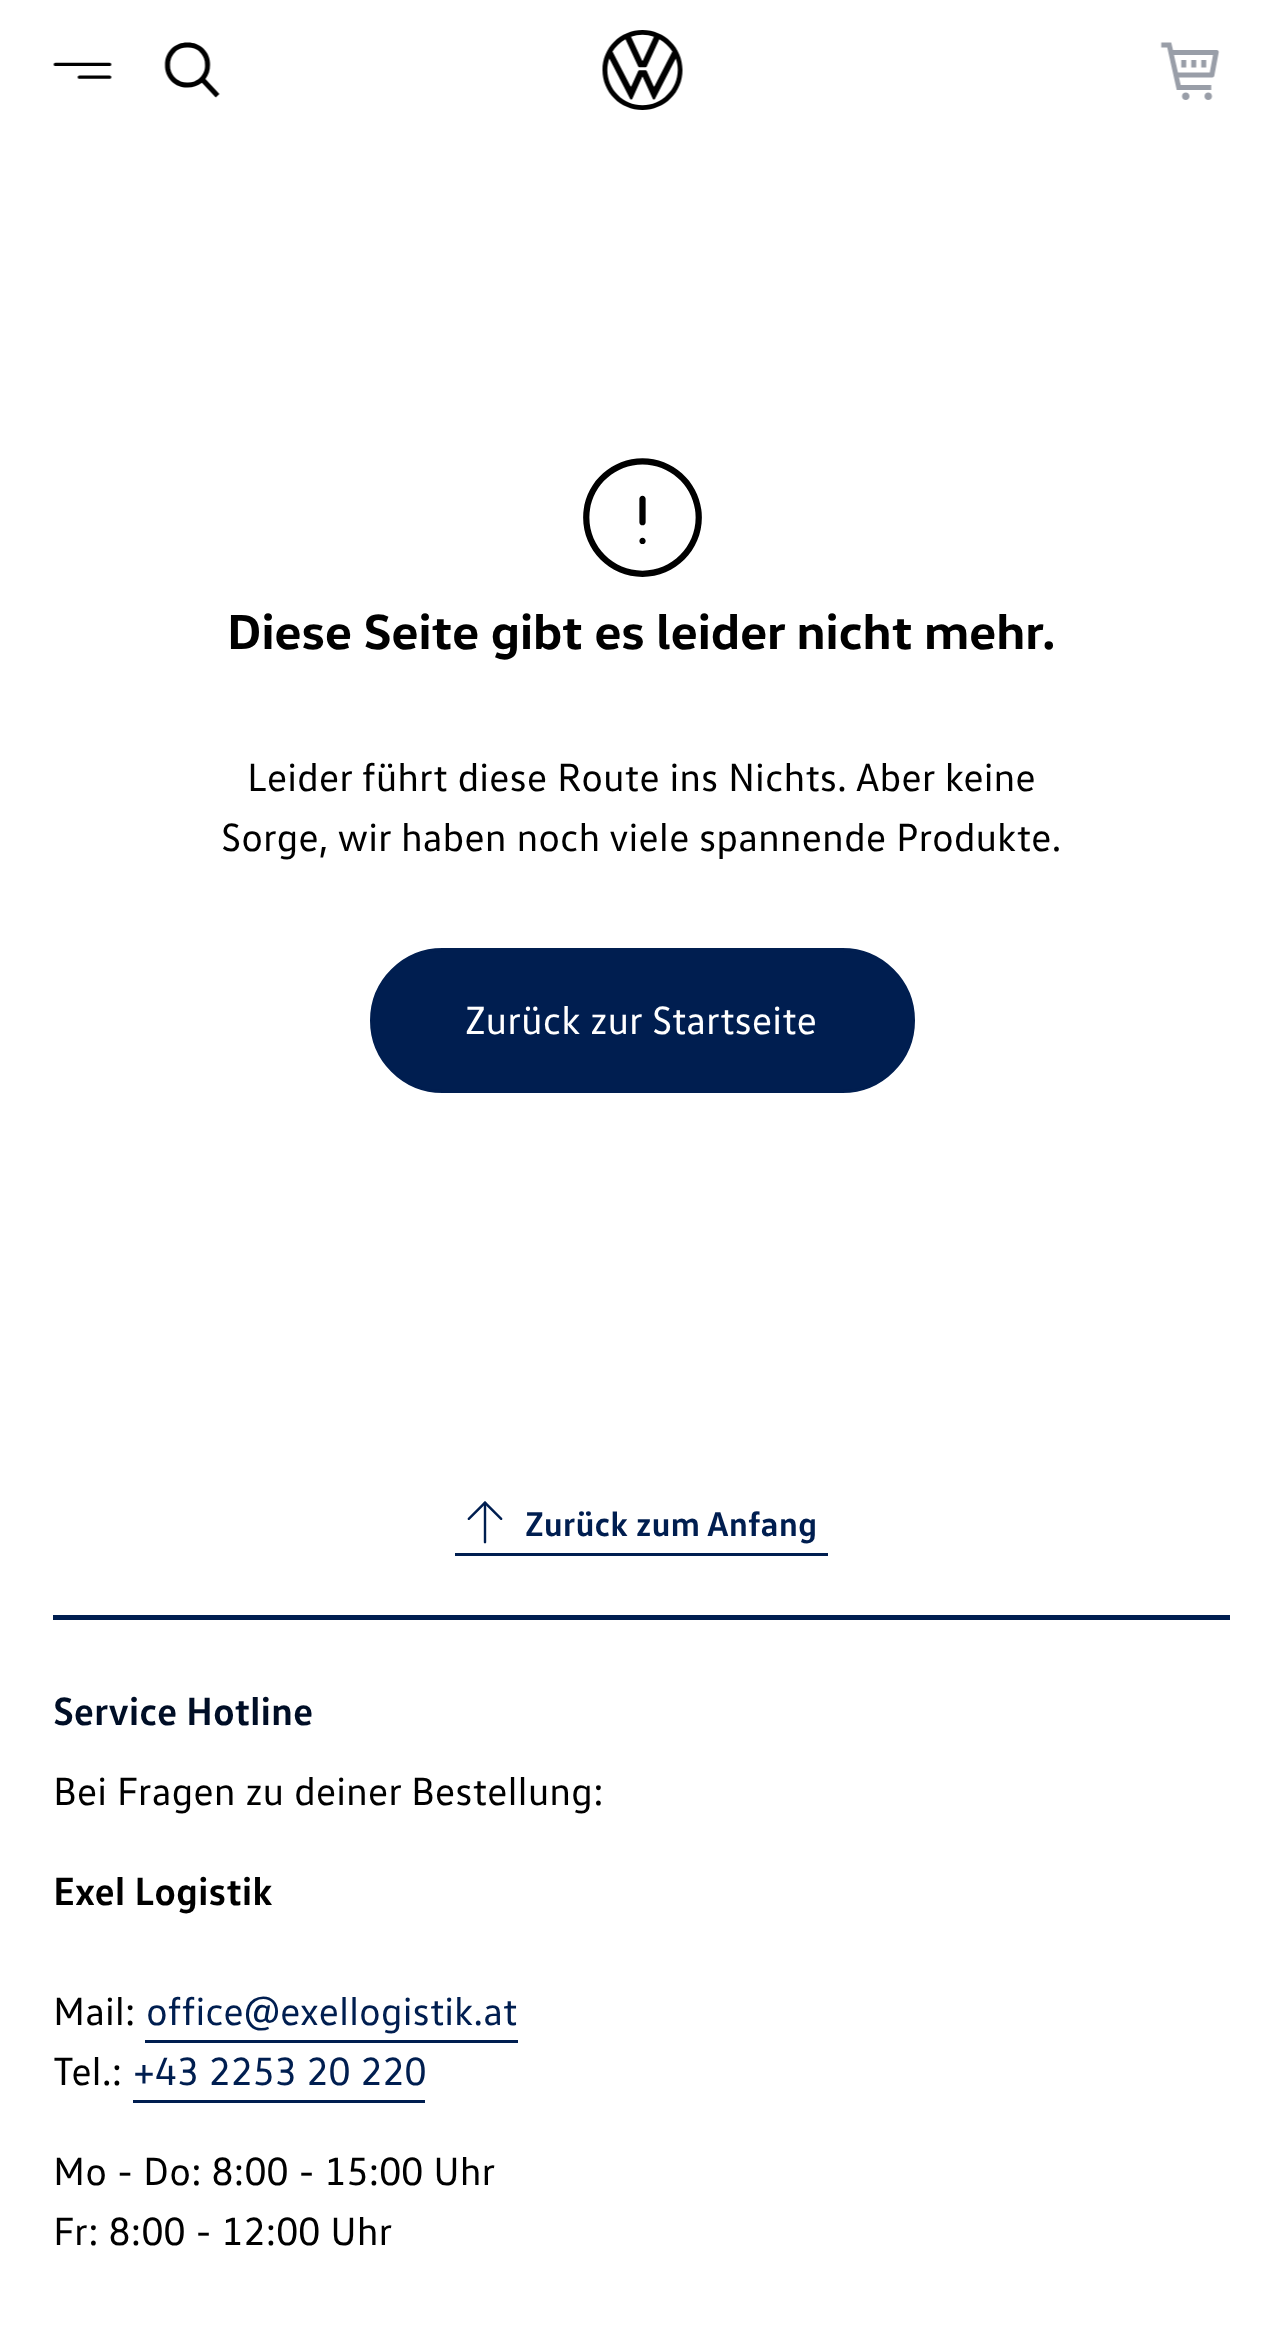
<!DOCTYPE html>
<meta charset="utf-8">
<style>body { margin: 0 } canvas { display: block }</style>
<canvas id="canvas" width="1282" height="2344"></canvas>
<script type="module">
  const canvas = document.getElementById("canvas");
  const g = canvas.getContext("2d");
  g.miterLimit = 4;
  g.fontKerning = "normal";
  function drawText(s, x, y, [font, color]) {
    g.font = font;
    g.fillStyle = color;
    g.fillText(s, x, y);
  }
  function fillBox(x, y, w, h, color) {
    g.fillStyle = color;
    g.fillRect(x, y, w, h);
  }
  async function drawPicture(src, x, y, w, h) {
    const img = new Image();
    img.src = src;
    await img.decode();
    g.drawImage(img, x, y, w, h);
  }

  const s1 = ["bold 50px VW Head", "#000000"];
  const s2 = ["40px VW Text", "#000000"];
  const s3 = ["40px VW Text", "#FFFFFF"];
  const s4 = ["bold 35px VW Text", "#001E50"];
  const s5 = ["bold 40px VW Text", "#000E26"];
  const s6 = ["bold 40px VW Text", "#000000"];
  const s7 = ["40px VW Text", "#001E50"];

  fillBox(0, 0, 1282, 2344, "#FFFFFF");
  await drawPicture("pic1.png", 53, 62, 59, 17);
  await drawPicture("pic2.png", 164, 42, 56, 56);
  await drawPicture("pic3.png", 602, 30, 81, 80);
  await drawPicture("pic4.png", 1160, 42, 60, 58);
  await drawPicture("pic5.png", 583, 458, 119, 119);
  drawText("Diese Seite gibt es leider nicht mehr.", 227, 649, s1);
  drawText("Leider führt diese Route ins Nichts. Aber keine", 247, 791, s2);
  drawText("Sorge, wir haben noch viele spannende Produkte.", 221, 851, s2);
  g.fillStyle = "#001E50";
  g.beginPath();
  g.roundRect(371.5, 949.5, 542, 142, 71);
  g.fill();
  g.strokeStyle = "#001E50";
  g.lineWidth = 3;
  g.stroke();
  drawText("Zurück zur Startseite", 465, 1034, s3);
  fillBox(53, 1615, 1177, 5, "#001E50");
  fillBox(455, 1553, 373, 3, "#001E50");
  await drawPicture("pic6.png", 467, 1501, 36, 43);
  drawText("Zurück zum Anfang", 525, 1536, s4);
  drawText("Service Hotline", 53, 1725, s5);
  drawText("Bei Fragen zu deiner Bestellung:", 53, 1805, s2);
  drawText("Exel Logistik", 53, 1905, s6);
  drawText("Mail:", 53, 2025, s2);
  drawText("office@exellogistik.at", 146, 2025, s7);
  fillBox(145, 2040, 373, 3, "#001E50");
  drawText("Tel.:", 53, 2085, s2);
  drawText("+43 2253 20 220", 133, 2085, s7);
  fillBox(133, 2100, 292, 3, "#001E50");
  drawText("Mo - Do: 8:00 - 15:00 Uhr", 53, 2185, s2);
  drawText("Fr: 8:00 - 12:00 Uhr", 53, 2245, s2);
</script>
